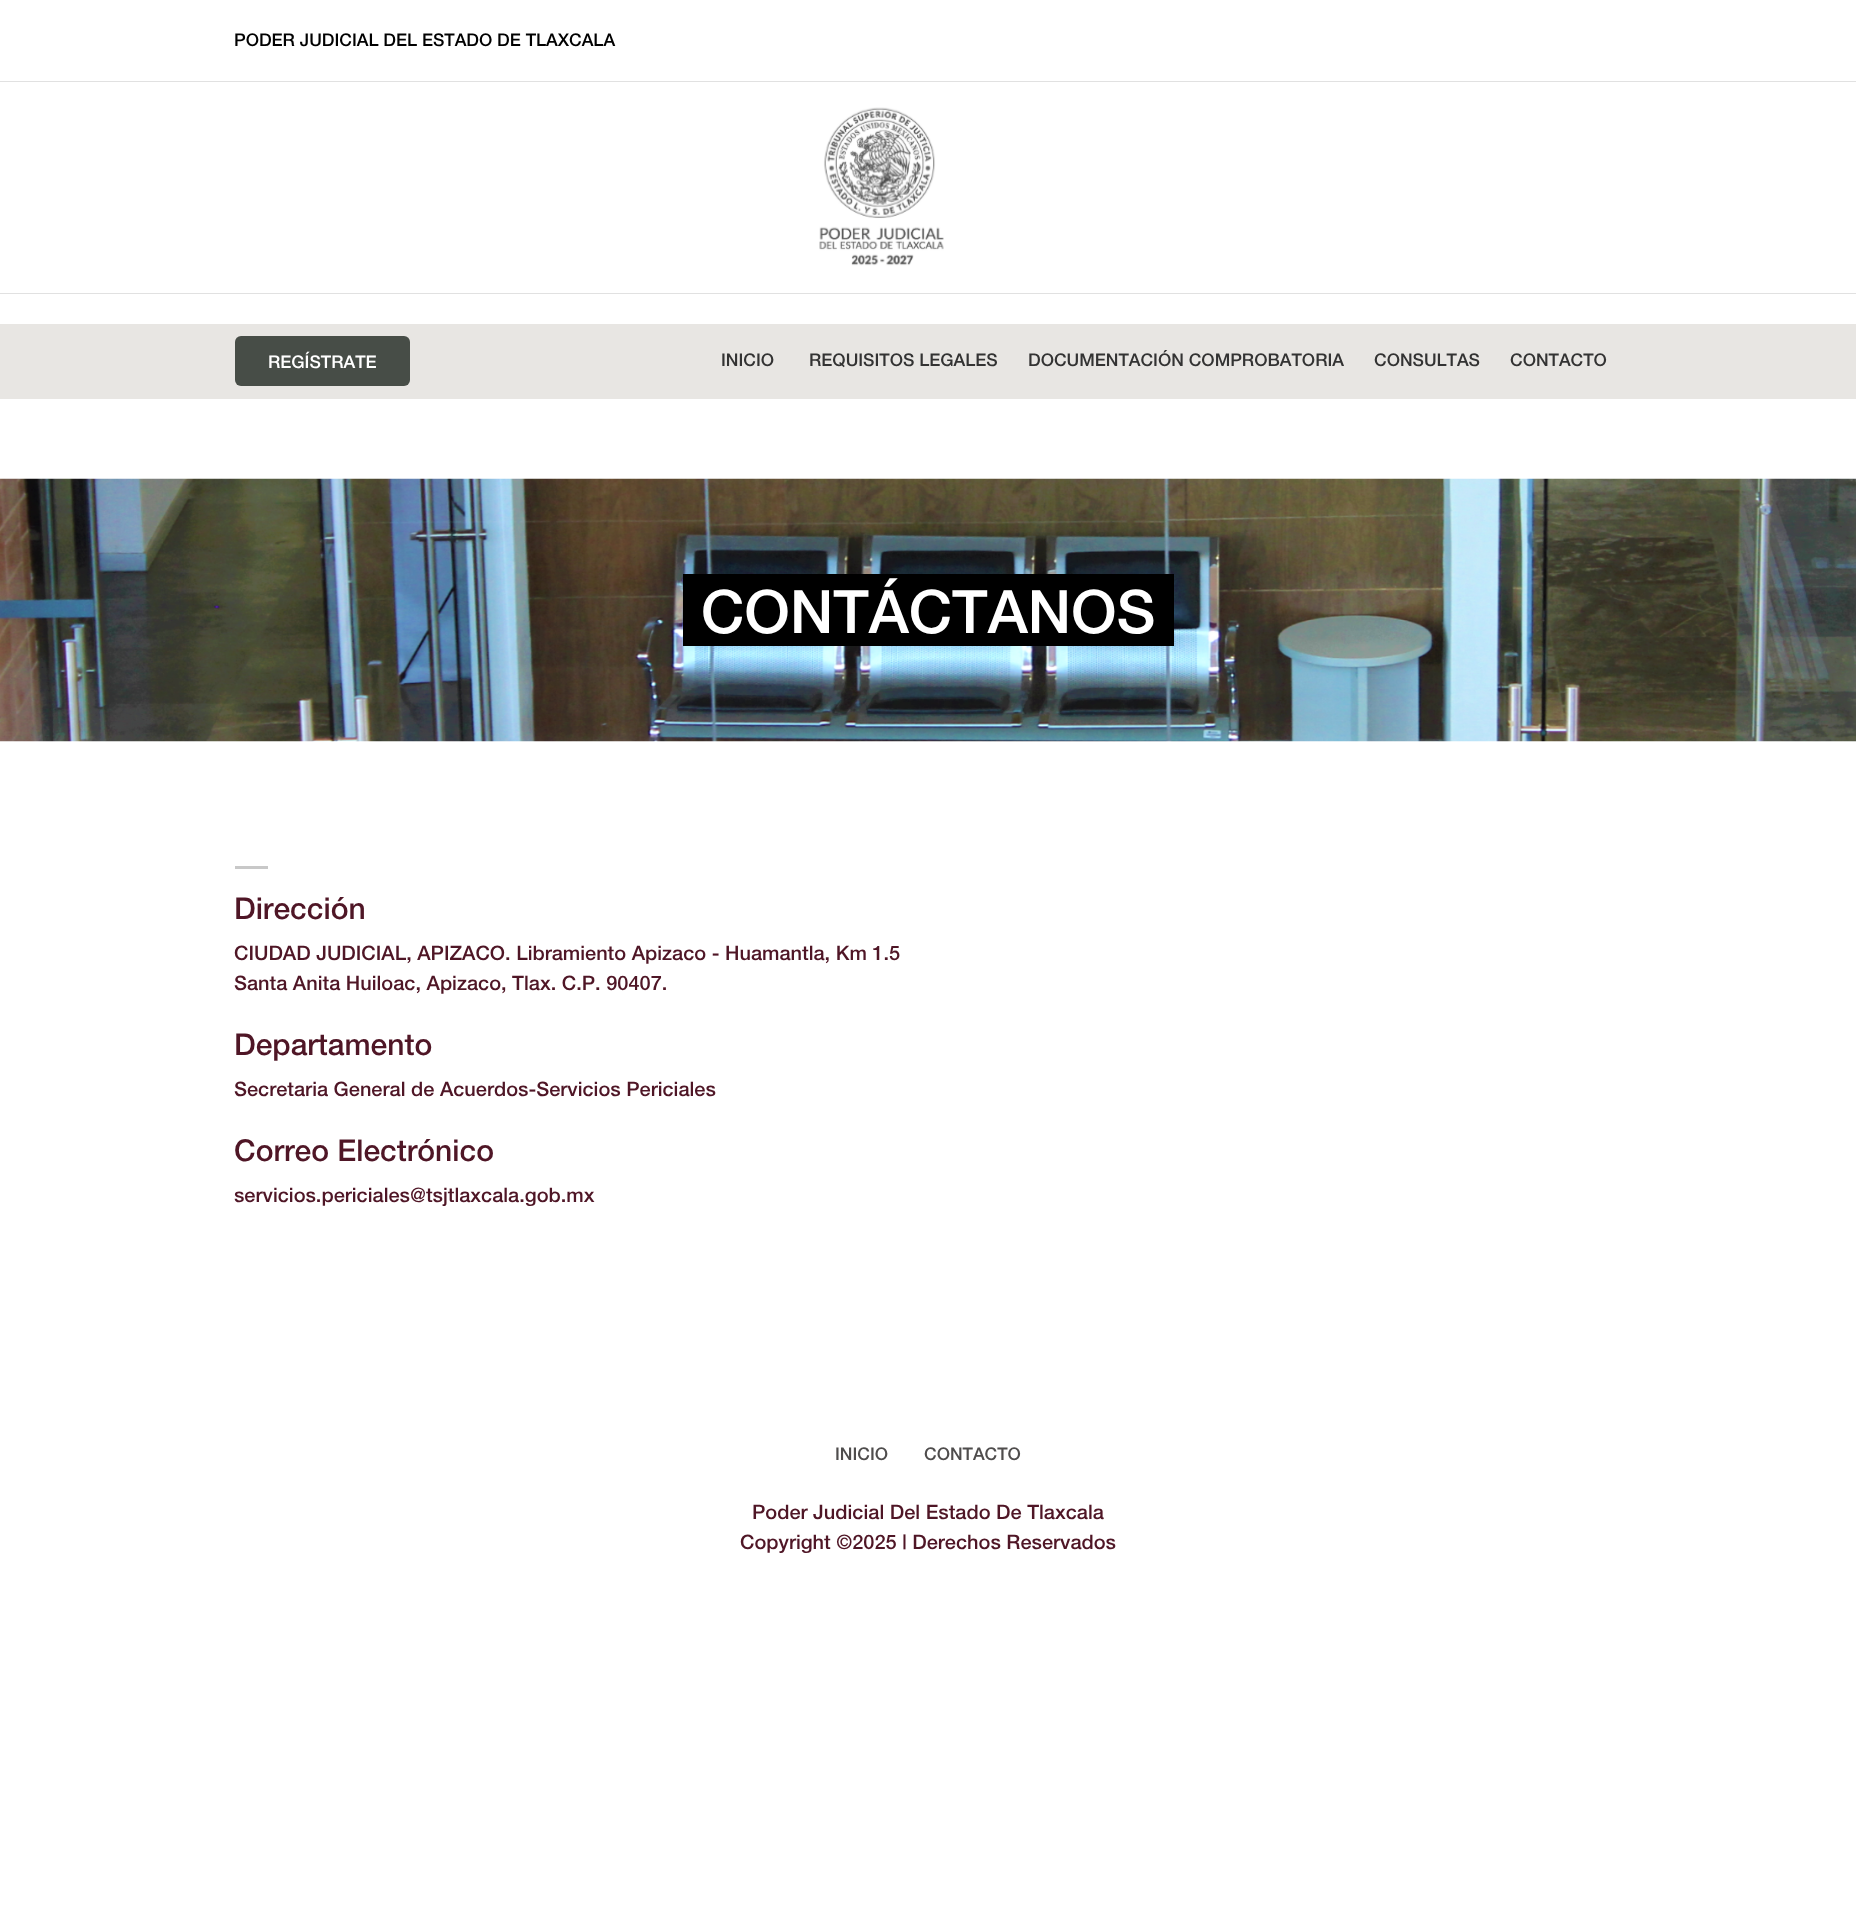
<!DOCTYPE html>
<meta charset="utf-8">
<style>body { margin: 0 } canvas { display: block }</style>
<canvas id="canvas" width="1856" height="1924"></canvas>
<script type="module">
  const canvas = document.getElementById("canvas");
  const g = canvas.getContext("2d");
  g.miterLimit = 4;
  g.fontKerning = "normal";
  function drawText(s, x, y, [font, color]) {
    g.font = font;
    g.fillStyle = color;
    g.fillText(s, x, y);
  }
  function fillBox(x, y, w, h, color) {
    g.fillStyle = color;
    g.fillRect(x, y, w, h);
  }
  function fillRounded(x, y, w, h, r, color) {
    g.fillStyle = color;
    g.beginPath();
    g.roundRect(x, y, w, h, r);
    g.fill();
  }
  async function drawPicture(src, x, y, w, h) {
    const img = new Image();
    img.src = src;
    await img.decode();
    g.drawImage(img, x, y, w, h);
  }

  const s1 = ["500 17.5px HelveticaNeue", "#010101"];
  const s2 = ["500 17.5px HelveticaNeue", "#FFFFFF"];
  const s3 = ["500 17.5px HelveticaNeue", "#333333"];
  const s4 = ["500 60px HelveticaNeue", "#FFFFFF"];
  const s5 = ["500 30px HelveticaNeue", "#4F1626"];
  const s6 = ["500 20px HelveticaNeue", "#4F1626"];
  const s7 = ["500 17.5px HelveticaNeue", "#4F4D4D"];

  fillBox(0, 0, 1856, 1924, "#FFFFFF");
  drawText("PODER JUDICIAL DEL ESTADO DE TLAXCALA", 234, 46, s1);
  fillBox(0, 81, 1856, 1, "#E1E1E1");
  fillBox(0, 293, 1856, 1, "#E1E1E1");
  await drawPicture("pic1.png", 819, 107, 125, 159);
  fillBox(0, 324, 1856, 75, "#E8E6E3");
  fillRounded(235, 336, 175, 50, 6, "#474D47");
  drawText("REGÍSTRATE", 268, 368, s2);
  drawText("INICIO", 721, 366, s3);
  drawText("REQUISITOS LEGALES", 809, 366, s3);
  drawText("DOCUMENTACIÓN COMPROBATORIA", 1028, 366, s3);
  drawText("CONSULTAS", 1374, 366, s3);
  drawText("CONTACTO", 1510, 366, s3);
  await drawPicture("pic2.png", 0, 478, 1856, 264);
  fillBox(683, 574, 491, 72, "#000000");
  drawText("CONTÁCTANOS", 701, 633, s4);
  fillBox(235, 866, 33, 3, "#C8C8C8");
  drawText("Dirección", 234, 919, s5);
  drawText("CIUDAD JUDICIAL, APIZACO. Libramiento Apizaco - Huamantla, Km 1.5", 234, 960, s6);
  drawText("Santa Anita Huiloac, Apizaco, Tlax. C.P. 90407.", 234, 990, s6);
  drawText("Departamento", 234, 1055, s5);
  drawText("Secretaria General de Acuerdos-Servicios Periciales", 234, 1096, s6);
  drawText("Correo Electrónico", 234, 1161, s5);
  drawText("servicios.periciales@tsjtlaxcala.gob.mx", 234, 1202, s6);
  drawText("INICIO", 835, 1460, s7);
  drawText("CONTACTO", 924, 1460, s7);
  drawText("Poder Judicial Del Estado De Tlaxcala", 752, 1519, s6);
  drawText("Copyright ©2025 | Derechos Reservados", 740, 1549, s6);
</script>
